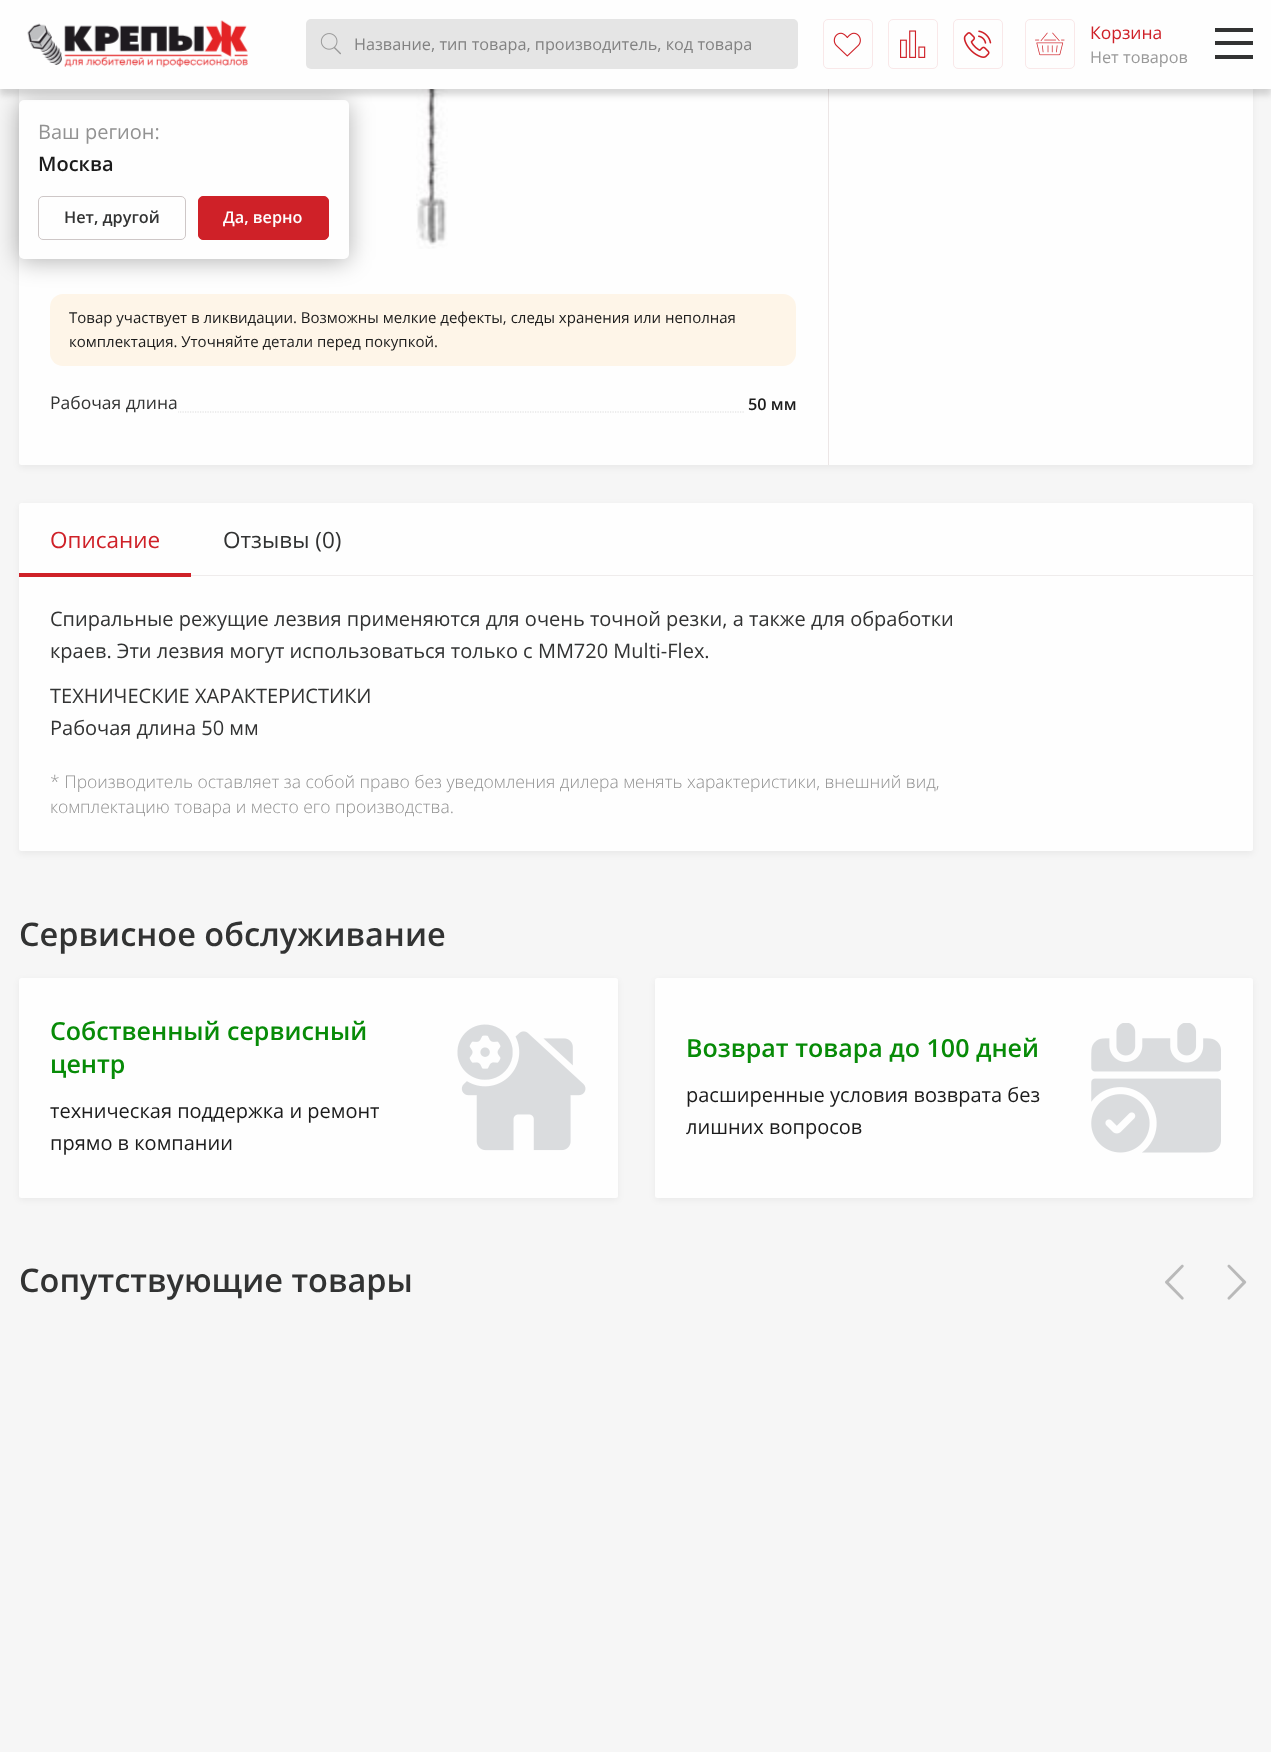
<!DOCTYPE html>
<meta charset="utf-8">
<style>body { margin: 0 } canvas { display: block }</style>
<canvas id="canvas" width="1271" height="1752"></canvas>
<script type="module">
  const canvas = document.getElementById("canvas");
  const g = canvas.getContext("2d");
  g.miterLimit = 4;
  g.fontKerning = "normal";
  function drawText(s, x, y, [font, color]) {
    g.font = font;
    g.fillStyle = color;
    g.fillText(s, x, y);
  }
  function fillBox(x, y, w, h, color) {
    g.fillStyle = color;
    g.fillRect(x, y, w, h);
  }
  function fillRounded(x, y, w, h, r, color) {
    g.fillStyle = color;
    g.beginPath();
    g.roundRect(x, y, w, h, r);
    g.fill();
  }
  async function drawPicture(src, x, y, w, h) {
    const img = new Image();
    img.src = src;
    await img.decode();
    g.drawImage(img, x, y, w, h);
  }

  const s1 = ["16.25px Open Sans", "#828282"];
  const s2 = ["17.5px Open Sans", "#CF2128"];
  const s3 = ["16.25px Open Sans", "#999999"];
  const s4 = ["15px Open Sans", "#1B1B1B"];
  const s5 = ["17.5px Open Sans", "#323333"];
  const s6 = ["600 16.25px Open Sans", "#1B1B1B"];
  const s7 = ["22.5px Open Sans", "#CF2128"];
  const s8 = ["22.5px Open Sans", "#323333"];
  const s9 = ["20px Open Sans", "#323333"];
  const s10 = ["300 17.5px Open Sans", "#929292"];
  const s11 = ["600 32.5px Open Sans", "#323333"];
  const s12 = ["600 25px Open Sans", "#078B07"];
  const s13 = ["20px Open Sans", "#1B1B1B"];
  const s14 = ["20px Open Sans", "#929292"];
  const s15 = ["600 20px Open Sans", "#1B1B1B"];
  const s16 = ["600 16.25px Open Sans", "#323333"];
  const s17 = ["600 16.25px Open Sans", "#FEFEFE"];

  fillBox(0, 0, 1271, 1752, "#F6F6F6");
  g.fillStyle = "rgba(0, 0, 0, 0.05)";
  g.filter = "blur(3px)";
  g.beginPath();
  g.roundRect(19, -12, 1234, 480, 2.5);
  g.fill();
  g.filter = "none";
  fillRounded(19, -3, 1234, 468, 2.5, "#FEFEFE");
  await drawPicture("pic7.png", 416, 89, 32, 160);
  fillBox(828, 89, 1, 376, "#ECE6E6");
  fillRounded(50, 294, 746, 72, 13, "#FEF5E8");
  g.fillStyle = "rgba(0, 0, 0, 0.3)";
  g.filter = "blur(12.5px)";
  g.beginPath();
  g.roundRect(19, 103, 330, 158, 5);
  g.fill();
  g.filter = "none";
  fillRounded(19, 100, 330, 159, 5, "#FEFEFE");
  g.fillStyle = "rgba(0, 0, 0, 0.15)";
  g.filter = "blur(3px)";
  g.beginPath();
  g.rect(0, 6, 1271, 89);
  g.fill();
  g.filter = "none";
  fillBox(0, 0, 1271, 89, "#FEFEFE");
  await drawPicture("pic1.png", 27, 20, 221, 48);
  fillRounded(306, 19, 492, 50, 5, "#E5E5E5");
  await drawPicture("pic2.png", 320, 33, 21, 22);
  drawText("Название, тип товара, производитель, код товара", 354, 50, s1);
  g.beginPath();
  g.roundRect(823.5, 19.5, 49, 49, 4.5);
  g.strokeStyle = "#F9E8E9";
  g.stroke();
  await drawPicture("pic3.png", 833, 32, 28, 25);
  g.beginPath();
  g.roundRect(888.5, 19.5, 49, 49, 4.5);
  g.stroke();
  await drawPicture("pic4.png", 900, 30, 26, 28);
  g.beginPath();
  g.roundRect(953.5, 19.5, 49, 49, 4.5);
  g.stroke();
  await drawPicture("pic5.png", 963, 30, 29, 28);
  g.beginPath();
  g.roundRect(1025.5, 19.5, 49, 49, 4.5);
  g.stroke();
  await drawPicture("pic6.png", 1035, 32, 30, 24);
  drawText("Корзина", 1090, 39, s2);
  drawText("Нет товаров", 1090, 63, s3);
  fillBox(1215, 55, 38, 4, "#323333");
  fillBox(1215, 41, 38, 4, "#323333");
  fillBox(1215, 28, 38, 4, "#323333");
  drawText("Товар участвует в ликвидации. Возможны мелкие дефекты, следы хранения или неполная", 69, 323, s4);
  drawText("комплектация. Уточняйте детали перед покупкой.", 69, 347, s4);
  g.save();
  g.beginPath();
  g.rect(50, 391, 746, 24);
  g.clip();
  g.beginPath();
  g.moveTo(-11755, 412);
  g.lineTo(745, 412);
  g.strokeStyle = "#DCDCDC";
  g.lineWidth = 1.2;
  g.setLineDash([1.25, 1.25]);
  g.stroke();
  g.restore();
  fillBox(50, 411, 128, 2, "#FEFEFE");
  drawText("Рабочая длина", 50, 409, s5);
  drawText("50 мм", 748, 410, s6);
  g.fillStyle = "rgba(0, 0, 0, 0.05)";
  g.filter = "blur(3px)";
  g.beginPath();
  g.roundRect(19, 505, 1234, 349, 2.5);
  g.fill();
  g.filter = "none";
  fillRounded(19, 503, 1234, 348, 2.5, "#FEFEFE");
  fillBox(191, 575, 1062, 1, "#EFECEC");
  fillBox(19, 573, 172, 4, "#CF2128");
  drawText("Описание", 50, 548, s7);
  drawText("Отзывы (0)", 223, 548, s8);
  drawText("Спиральные режущие лезвия применяются для очень точной резки, а также для обработки", 50, 626, s9);
  drawText("краев. Эти лезвия могут использоваться только с MM720 Multi-Flex.", 50, 658, s9);
  drawText("ТЕХНИЧЕСКИЕ ХАРАКТЕРИСТИКИ", 50, 703, s9);
  drawText("Рабочая длина 50 мм", 50, 735, s9);
  drawText("* Производитель оставляет за собой право без уведомления дилера менять характеристики, внешний вид,", 50, 788, s10);
  drawText("комплектацию товара и место его производства.", 50, 813, s10);
  drawText("Сервисное обслуживание", 19, 946, s11);
  g.fillStyle = "rgba(0, 0, 0, 0.05)";
  g.filter = "blur(3px)";
  g.beginPath();
  g.roundRect(19, 980, 599, 220, 2.5);
  g.fill();
  g.filter = "none";
  fillRounded(19, 978, 599, 220, 2.5, "#FEFEFE");
  drawText("Собственный сервисный", 50, 1040, s12);
  drawText("центр", 50, 1073, s12);
  drawText("техническая поддержка и ремонт", 50, 1118, s13);
  drawText("прямо в компании", 50, 1150, s13);
  await drawPicture("pic8.png", 457, 1024, 129, 127);
  g.fillStyle = "rgba(0, 0, 0, 0.05)";
  g.filter = "blur(3px)";
  g.beginPath();
  g.roundRect(655, 980, 598, 220, 2.5);
  g.fill();
  g.filter = "none";
  fillRounded(655, 978, 598, 220, 2.5, "#FEFEFE");
  drawText("Возврат товара до 100 дней", 686, 1057, s12);
  drawText("расширенные условия возврата без", 686, 1102, s13);
  drawText("лишних вопросов", 686, 1134, s13);
  await drawPicture("pic9.png", 1091, 1023, 130, 130);
  drawText("Сопутствующие товары", 19, 1292, s11);
  await drawPicture("pic10.png", 1165, 1264, 19, 36);
  await drawPicture("pic11.png", 1227, 1264, 20, 36);
  drawText("Ваш регион:", 38, 139, s14);
  drawText("Москва", 38, 171, s15);
  g.beginPath();
  g.roundRect(38.5, 196.5, 147, 43, 4.5);
  g.strokeStyle = "#CEC7C7";
  g.stroke();
  drawText("Нет, другой", 64, 223, s16);
  g.fillStyle = "#CF2128";
  g.beginPath();
  g.roundRect(198.5, 196.5, 130, 43, 4.5);
  g.fill();
  g.strokeStyle = "#CF2128";
  g.stroke();
  drawText("Да, верно", 223, 223, s17);
</script>
